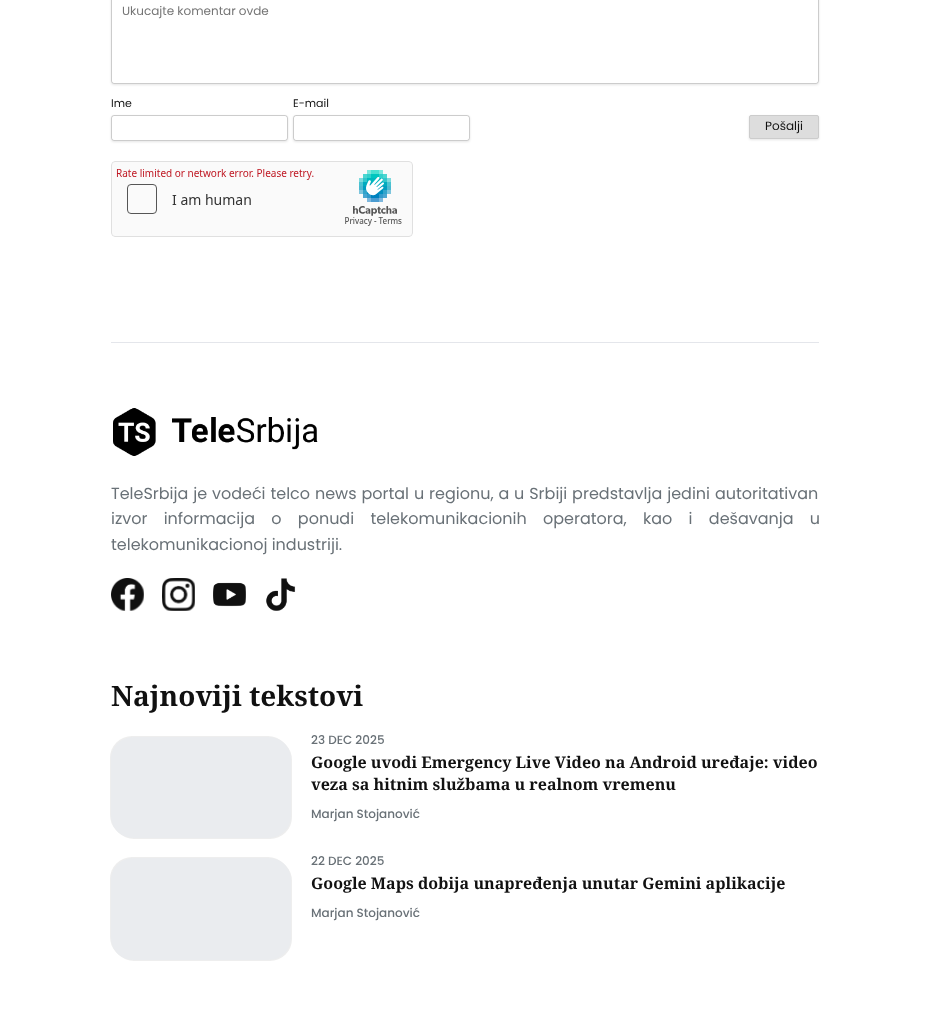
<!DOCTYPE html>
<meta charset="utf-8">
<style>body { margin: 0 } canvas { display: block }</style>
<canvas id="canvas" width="930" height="1010"></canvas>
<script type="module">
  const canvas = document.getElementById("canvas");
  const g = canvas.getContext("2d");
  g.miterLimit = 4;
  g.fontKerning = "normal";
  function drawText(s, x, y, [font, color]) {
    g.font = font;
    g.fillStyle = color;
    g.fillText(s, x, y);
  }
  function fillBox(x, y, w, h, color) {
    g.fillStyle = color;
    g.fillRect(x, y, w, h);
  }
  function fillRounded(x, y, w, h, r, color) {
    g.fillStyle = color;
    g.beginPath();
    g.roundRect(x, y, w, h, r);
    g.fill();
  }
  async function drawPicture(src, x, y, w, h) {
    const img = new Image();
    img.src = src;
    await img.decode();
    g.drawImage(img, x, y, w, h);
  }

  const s1 = ["12px Poppins", "#757575"];
  const s2 = ["11px Poppins", "#111111"];
  const s3 = ["12px Poppins", "#111111"];
  const s4 = ["16px Poppins", "#697177"];
  const s5 = ["bold 28px Noto Serif", "#111111"];
  const s6 = ["500 12px Poppins", "#697177"];
  const s7 = ["bold 16px Noto Serif", "#111111"];

  fillBox(0, 0, 930, 1010, "#FFFFFF");
  g.fillStyle = "rgba(0, 0, 0, 0.1)";
  g.filter = "blur(1px)";
  g.beginPath();
  g.roundRect(111, -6, 708, 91, 3);
  g.fill();
  g.filter = "none";
  fillRounded(111, -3, 708, 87, 3, "#FFFFFF");
  g.beginPath();
  g.roundRect(111.5, -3.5, 707, 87, 2.5);
  g.strokeStyle = "rgba(0, 0, 0, 0.2)";
  g.stroke();
  drawText("Ukucajte komentar ovde", 122, 15, s1);
  drawText("Ime", 111, 107, s2);
  g.fillStyle = "rgba(0, 0, 0, 0.1)";
  g.filter = "blur(1px)";
  g.beginPath();
  g.roundRect(111, 116, 177, 26, 3);
  g.fill();
  g.filter = "none";
  fillRounded(111, 115, 177, 26, 3, "#FFFFFF");
  g.beginPath();
  g.roundRect(111.5, 115.5, 176, 25, 2.5);
  g.stroke();
  drawText("E-mail", 293, 107, s2);
  g.fillStyle = "rgba(0, 0, 0, 0.1)";
  g.filter = "blur(1px)";
  g.beginPath();
  g.roundRect(293, 116, 177, 26, 3);
  g.fill();
  g.filter = "none";
  fillRounded(293, 115, 177, 26, 3, "#FFFFFF");
  g.beginPath();
  g.roundRect(293.5, 115.5, 176, 25, 2.5);
  g.stroke();
  g.fillStyle = "rgba(0, 0, 0, 0.1)";
  g.filter = "blur(1px)";
  g.beginPath();
  g.roundRect(749, 116, 70, 24, 2);
  g.fill();
  g.filter = "none";
  g.fillStyle = "#DDDDDD";
  g.beginPath();
  g.roundRect(749.5, 115.5, 69, 23, 1.5);
  g.fill();
  g.strokeStyle = "#CCCCCC";
  g.stroke();
  drawText("Pošalji", 765, 130, s3);
  await drawPicture("pic1.png", 111, 161, 302, 76);
  fillBox(111, 342, 708, 1, "#E4E6EB");
  await drawPicture("pic2.png", 113, 408, 205, 48);
  g.wordSpacing = "0.6px";
  drawText("TeleSrbija je vodeći telco news portal u regionu, a u Srbiji predstavlja jedini autoritativan", 111, 499, s4);
  g.wordSpacing = "12px";
  drawText("izvor informacija o ponudi telekomunikacionih operatora, kao i dešavanja u", 111, 524, s4);
  g.wordSpacing = "0px";
  drawText("telekomunikacionoj industriji.", 111, 550, s4);
  await drawPicture("pic3.png", 111, 578, 33, 33);
  await drawPicture("pic4.png", 162, 578, 33, 33);
  await drawPicture("pic5.png", 213, 582, 33, 25);
  await drawPicture("pic6.png", 266, 578, 30, 33);
  drawText("Najnoviji tekstovi", 111, 706, s5);
  g.fillStyle = "#EEEEEE";
  g.filter = "blur(0.5px)";
  g.beginPath();
  g.roundRect(110, 736, 180, 101, 22);
  g.fill();
  g.filter = "none";
  g.filter = "blur(0.5px)";
  g.beginPath();
  g.roundRect(112, 738, 180, 101, 22);
  g.fill();
  g.filter = "none";
  fillRounded(111, 737, 180, 101, 22, "#EAECEF");
  drawText("23 DEC 2025", 311, 744, s6);
  drawText("Google uvodi Emergency Live Video na Android uređaje: video", 311, 768, s7);
  drawText("veza sa hitnim službama u realnom vremenu", 311, 790, s7);
  drawText("Marjan Stojanović", 311, 818, s6);
  g.fillStyle = "#EEEEEE";
  g.filter = "blur(0.5px)";
  g.beginPath();
  g.roundRect(110, 857, 180, 102, 22);
  g.fill();
  g.filter = "none";
  g.filter = "blur(0.5px)";
  g.beginPath();
  g.roundRect(112, 859, 180, 102, 22);
  g.fill();
  g.filter = "none";
  fillRounded(111, 858, 180, 102, 22, "#EAECEF");
  drawText("22 DEC 2025", 311, 865, s6);
  drawText("Google Maps dobija unapređenja unutar Gemini aplikacije", 311, 889, s7);
  drawText("Marjan Stojanović", 311, 917, s6);
</script>
